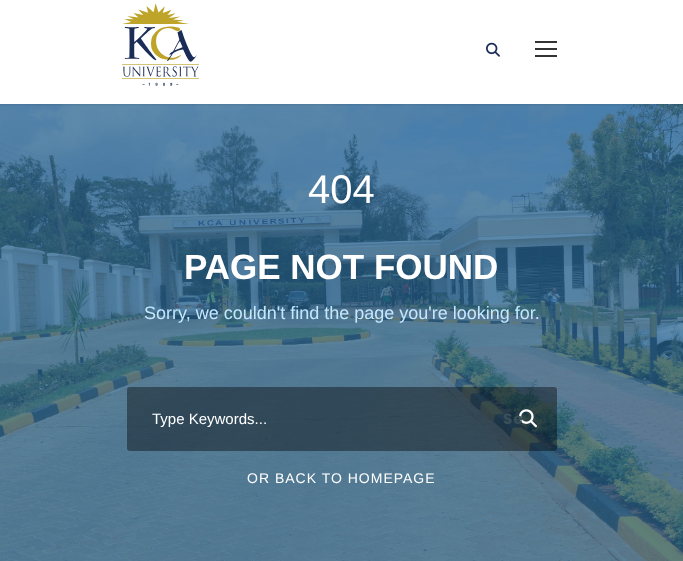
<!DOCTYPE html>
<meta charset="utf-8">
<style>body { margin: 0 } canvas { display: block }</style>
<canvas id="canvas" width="683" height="561"></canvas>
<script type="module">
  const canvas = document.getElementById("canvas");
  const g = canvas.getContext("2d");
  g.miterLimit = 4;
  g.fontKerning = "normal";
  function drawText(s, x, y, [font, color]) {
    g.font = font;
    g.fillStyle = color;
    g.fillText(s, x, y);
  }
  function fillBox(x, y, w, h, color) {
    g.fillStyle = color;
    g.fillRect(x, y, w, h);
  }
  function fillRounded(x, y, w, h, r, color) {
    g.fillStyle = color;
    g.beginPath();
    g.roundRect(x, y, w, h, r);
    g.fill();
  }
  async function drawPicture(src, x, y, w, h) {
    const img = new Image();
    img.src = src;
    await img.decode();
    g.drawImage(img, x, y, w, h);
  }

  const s1 = ["40px Liberation Sans", "#FFFFFF"];
  const s2 = ["bold 35px Liberation Sans", "#FFFFFF"];
  const s3 = ["18px Liberation Sans", "#C3E7FF"];
  const s4 = ["15px Liberation Sans", "#FFFFFF"];
  const s5 = ["800 15px Poppins", "#384F58"];
  const s6 = ["14px Liberation Sans", "#FFFFFF"];

  fillBox(0, 0, 683, 561, "#FFFFFF");
  fillBox(0, 104, 683, 457, "#23618E");
  await drawPicture("pic3.png", 0, 104, 683, 457);
  g.save();
  g.beginPath();
  g.rect(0, 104, 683, 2);
  g.clip();
  g.fillStyle = "rgba(0, 0, 0, 0.1)";
  g.filter = "blur(1px)";
  g.beginPath();
  g.rect(0, 1, 683, 104);
  g.fill();
  g.filter = "none";
  g.restore();
  await drawPicture("pic1.png", 122, 3, 77, 83);
  await drawPicture("pic2.png", 486, 42, 14, 15);
  fillBox(535, 41, 22, 2, "#333333");
  fillBox(535, 48, 22, 2, "#333333");
  fillBox(535, 55, 22, 2, "#333333");
  drawText("404", 308, 203, s1);
  drawText("PAGE NOT FOUND", 184, 279, s2);
  drawText("Sorry, we couldn't find the page you're looking for.", 144, 319, s3);
  fillRounded(127, 387, 430, 64, 3, "rgba(0, 0, 0, 0.4)");
  g.save();
  g.beginPath();
  g.rect(152, 410, 345, 17);
  g.clip();
  drawText("Type Keywords...", 152, 424, s4);
  g.restore();
  await drawPicture("pic4.png", 519, 409, 18, 19);
  g.letterSpacing = "1px";
  drawText("Se", 503, 424, s5);
  drawText("OR BACK TO HOMEPAGE", 247, 483, s6);
</script>
